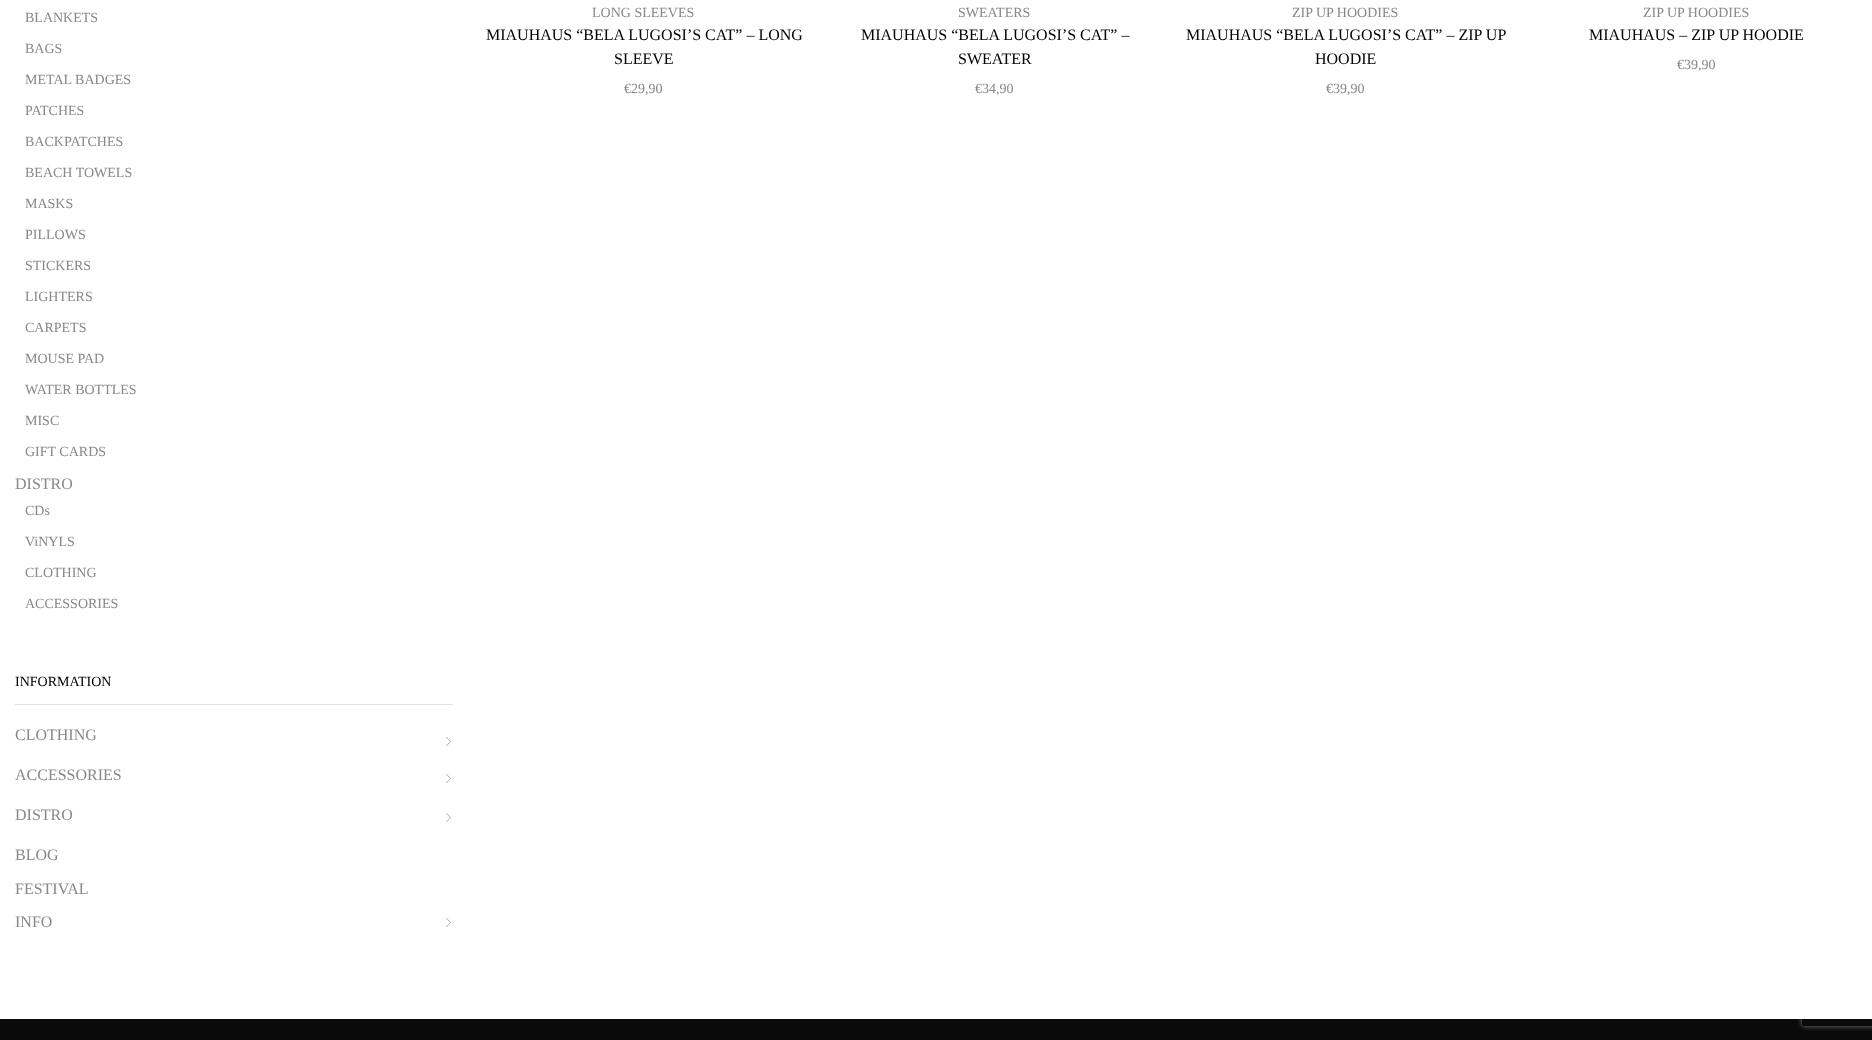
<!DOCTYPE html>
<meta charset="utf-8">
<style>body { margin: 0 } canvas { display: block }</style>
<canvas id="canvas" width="1872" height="1040"></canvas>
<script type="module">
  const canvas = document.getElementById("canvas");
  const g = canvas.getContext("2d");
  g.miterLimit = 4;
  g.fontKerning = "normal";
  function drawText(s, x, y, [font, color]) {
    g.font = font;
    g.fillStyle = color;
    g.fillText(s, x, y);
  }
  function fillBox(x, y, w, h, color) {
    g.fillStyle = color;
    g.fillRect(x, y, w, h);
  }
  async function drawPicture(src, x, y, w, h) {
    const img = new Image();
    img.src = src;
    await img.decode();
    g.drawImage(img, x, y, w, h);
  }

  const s1 = ["14px Liberation Serif", "#888888"];
  const s2 = ["16px Liberation Serif", "#888888"];
  const s3 = ["14px Liberation Serif", "#000000"];
  const s4 = ["16px Liberation Serif", "#000000"];

  fillBox(0, 0, 1872, 1040, "#0A0A0A");
  g.save();
  g.beginPath();
  g.moveTo(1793, 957);
  g.lineTo(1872, 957);
  g.lineTo(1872, 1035);
  g.lineTo(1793, 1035);
  g.closePath();
  g.moveTo(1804, 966);
  g.lineTo(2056, 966);
  g.bezierCurveTo(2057, 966, 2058, 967, 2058, 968);
  g.lineTo(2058, 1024);
  g.bezierCurveTo(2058, 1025, 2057, 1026, 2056, 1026);
  g.lineTo(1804, 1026);
  g.bezierCurveTo(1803, 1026, 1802, 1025, 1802, 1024);
  g.lineTo(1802, 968);
  g.bezierCurveTo(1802, 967, 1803, 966, 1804, 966);
  g.closePath();
  g.clip("evenodd");
  g.fillStyle = "#808080";
  g.filter = "blur(2.5px)";
  g.beginPath();
  g.roundRect(1802, 966, 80, 60, 2);
  g.fill();
  g.filter = "none";
  g.restore();
  fillBox(0, 0, 1872, 1019, "#FFFFFF");
  drawText("BLANKETS", 25, 22, s1);
  drawText("BAGS", 25, 53, s1);
  drawText("METAL BADGES", 25, 84, s1);
  drawText("PATCHES", 25, 115, s1);
  drawText("BACKPATCHES", 25, 146, s1);
  drawText("BEACH TOWELS", 25, 177, s1);
  drawText("MASKS", 25, 208, s1);
  drawText("PILLOWS", 25, 239, s1);
  drawText("STICKERS", 25, 270, s1);
  drawText("LIGHTERS", 25, 301, s1);
  drawText("CARPETS", 25, 332, s1);
  drawText("MOUSE PAD", 25, 363, s1);
  drawText("WATER BOTTLES", 25, 394, s1);
  drawText("MISC", 25, 425, s1);
  drawText("GIFT CARDS", 25, 456, s1);
  drawText("DISTRO", 15, 489, s2);
  drawText("CDs", 25, 515, s1);
  drawText("ViNYLS", 25, 546, s1);
  drawText("CLOTHING", 25, 577, s1);
  drawText("ACCESSORIES", 25, 608, s1);
  fillBox(15, 704, 438, 1, "#E1E1E1");
  drawText("INFORMATION", 15, 686, s3);
  drawText("CLOTHING", 15, 740, s2);
  await drawPicture("pic1.png", 446, 737, 5, 9);
  drawText("ACCESSORIES", 15, 780, s2);
  await drawPicture("pic1.png", 446, 774, 5, 9);
  drawText("DISTRO", 15, 820, s2);
  await drawPicture("pic1.png", 446, 813, 5, 9);
  drawText("BLOG", 15, 860, s2);
  drawText("FESTIVAL", 15, 894, s2);
  drawText("INFO", 15, 927, s2);
  await drawPicture("pic1.png", 446, 918, 5, 9);
  drawText("LONG SLEEVES", 592, 17, s1);
  drawText("MIAUHAUS “BELA LUGOSI’S CAT” – LONG", 486, 40, s4);
  drawText("SLEEVE", 614, 64, s4);
  drawText("€29,90", 624, 93, s1);
  drawText("SWEATERS", 958, 17, s1);
  drawText("MIAUHAUS “BELA LUGOSI’S CAT” –", 861, 40, s4);
  drawText("SWEATER", 958, 64, s4);
  drawText("€34,90", 975, 93, s1);
  drawText("ZIP UP HOODIES", 1292, 17, s1);
  drawText("MIAUHAUS “BELA LUGOSI’S CAT” – ZIP UP", 1186, 40, s4);
  drawText("HOODIE", 1315, 64, s4);
  drawText("€39,90", 1326, 93, s1);
  drawText("ZIP UP HOODIES", 1643, 17, s1);
  drawText("MIAUHAUS – ZIP UP HOODIE", 1589, 40, s4);
  drawText("€39,90", 1677, 69, s1);
</script>
